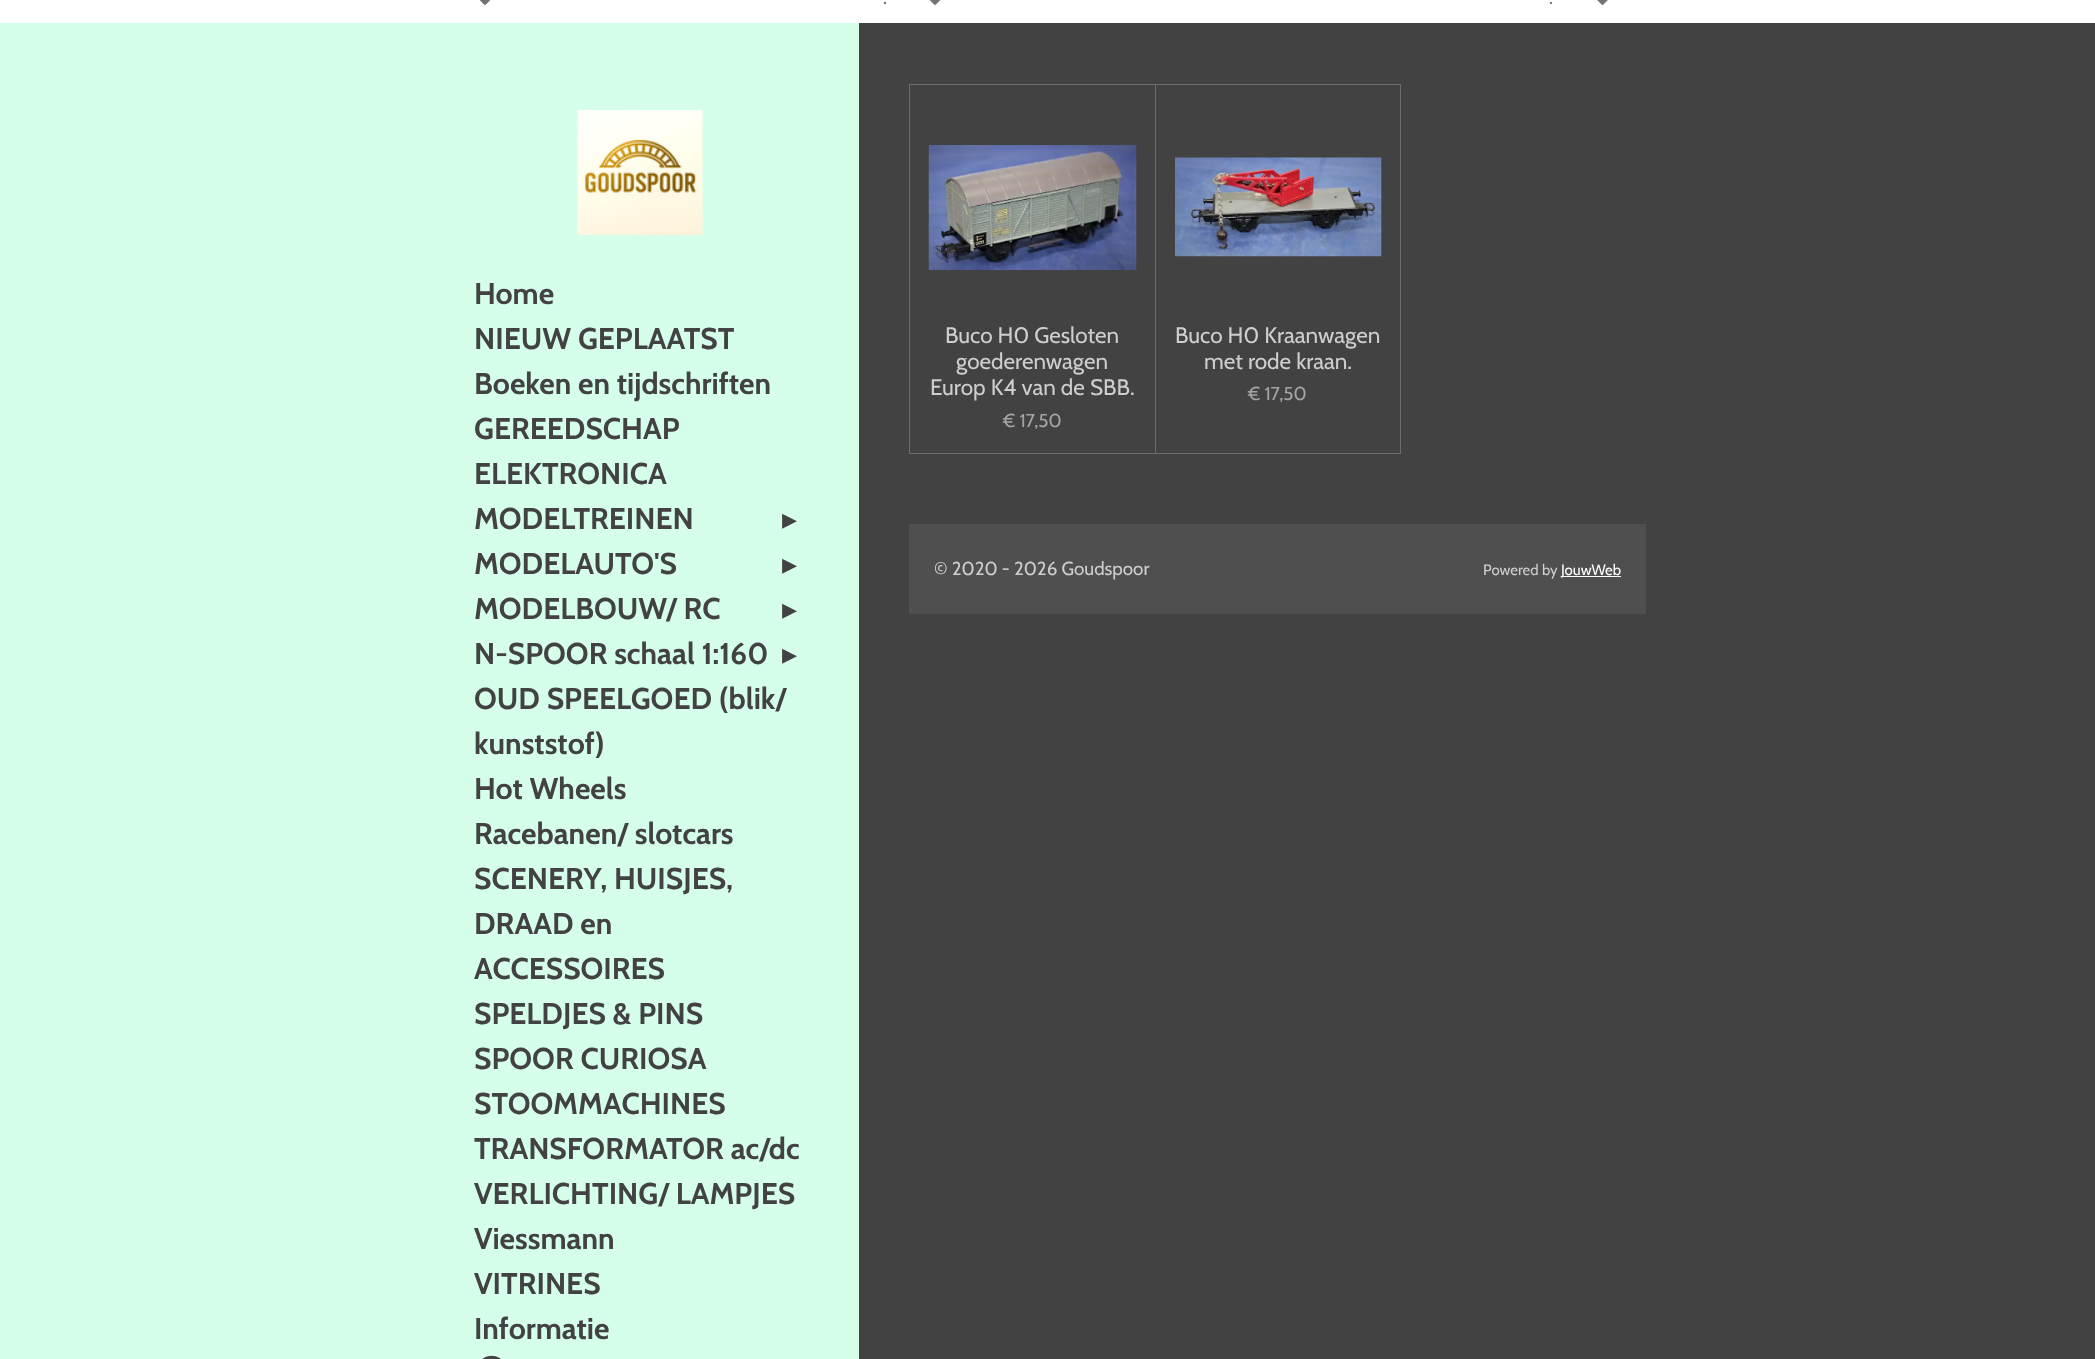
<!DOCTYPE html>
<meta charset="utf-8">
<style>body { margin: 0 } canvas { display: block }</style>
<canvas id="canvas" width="2095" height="1359"></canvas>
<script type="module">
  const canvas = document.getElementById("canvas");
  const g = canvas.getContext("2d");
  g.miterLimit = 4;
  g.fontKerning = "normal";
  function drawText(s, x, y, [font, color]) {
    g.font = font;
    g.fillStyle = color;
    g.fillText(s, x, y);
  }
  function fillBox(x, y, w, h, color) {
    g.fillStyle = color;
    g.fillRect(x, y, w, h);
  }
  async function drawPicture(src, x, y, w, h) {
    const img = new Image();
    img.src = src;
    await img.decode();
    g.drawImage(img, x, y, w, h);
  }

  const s1 = ["18.75px Cabin", "#737373"];
  const s2 = ["bold 30px Cabin", "#424242"];
  const s3 = ["30px DejaVu Sans", "#424242"];
  const s4 = ["22.5px Cabin", "#CECECE"];
  const s5 = ["18.75px Cabin", "#A4A4A4"];
  const s6 = ["18.75px Cabin", "#CECECE"];
  const s7 = ["15px Cabin", "#CECECE"];
  const s8 = ["15px Cabin", "#FFFFFF"];

  fillBox(0, 0, 2095, 1359, "#424242");
  fillBox(0, 0, 2095, 23, "#FFFFFF");
  await drawPicture("pic1.png", 479, 0, 12, 5);
  drawText(".", 883, 4, s1);
  await drawPicture("pic1.png", 929, 0, 12, 5);
  drawText(".", 1549, 4, s1);
  await drawPicture("pic2.png", 1597, 0, 11, 5);
  fillBox(0, 23, 859, 1336, "#D6FFEB");
  await drawPicture("pic3.png", 577, 110, 126, 125);
  drawText("Home", 474, 304, s2);
  drawText("NIEUW GEPLAATST", 474, 349, s2);
  drawText("Boeken en tijdschriften", 474, 394, s2);
  drawText("GEREEDSCHAP", 474, 439, s2);
  drawText("ELEKTRONICA", 474, 484, s2);
  drawText("MODELTREINEN", 474, 529, s2);
  drawText("▸", 782, 529, s3);
  drawText("MODELAUTO'S", 474, 574, s2);
  drawText("▸", 782, 574, s3);
  drawText("MODELBOUW/ RC", 474, 619, s2);
  drawText("▸", 782, 619, s3);
  drawText("N-SPOOR schaal 1:160", 474, 664, s2);
  drawText("▸", 782, 664, s3);
  drawText("OUD SPEELGOED (blik/", 474, 709, s2);
  drawText("kunststof)", 474, 754, s2);
  drawText("Hot Wheels", 474, 799, s2);
  drawText("Racebanen/ slotcars", 474, 844, s2);
  drawText("SCENERY, HUISJES,", 474, 889, s2);
  drawText("DRAAD en", 474, 934, s2);
  drawText("ACCESSOIRES", 474, 979, s2);
  drawText("SPELDJES & PINS", 474, 1024, s2);
  drawText("SPOOR CURIOSA", 474, 1069, s2);
  drawText("STOOMMACHINES", 474, 1114, s2);
  drawText("TRANSFORMATOR ac/dc", 474, 1159, s2);
  drawText("VERLICHTING/ LAMPJES", 474, 1204, s2);
  drawText("Viessmann", 474, 1249, s2);
  drawText("VITRINES", 474, 1294, s2);
  drawText("Informatie", 474, 1339, s2);
  await drawPicture("pic4.png", 482, 1355, 19, 4);
  g.strokeStyle = "#6C6C6C";
  g.strokeRect(909.5, 84.5, 246, 369);
  await drawPicture("pic5.png", 928, 145, 209, 125);
  drawText("Buco H0 Gesloten", 945, 343, s4);
  drawText("goederenwagen", 956, 369, s4);
  drawText("Europ K4 van de SBB.", 930, 395, s4);
  drawText("€ 17,50", 1003, 427, s5);
  g.strokeRect(1155.5, 84.5, 245, 369);
  await drawPicture("pic6.png", 1175, 157, 207, 100);
  drawText("Buco H0 Kraanwagen", 1175, 343, s4);
  drawText("met rode kraan.", 1204, 369, s4);
  drawText("€ 17,50", 1248, 400, s5);
  fillBox(909, 524, 737, 90, "#4F4F4F");
  drawText("© 2020 - 2026 Goudspoor", 934, 575, s6);
  drawText("Powered by", 1483, 575, s7);
  fillBox(1561, 576, 60, 1, "#FFFFFF");
  drawText("JouwWeb", 1561, 575, s8);
</script>
